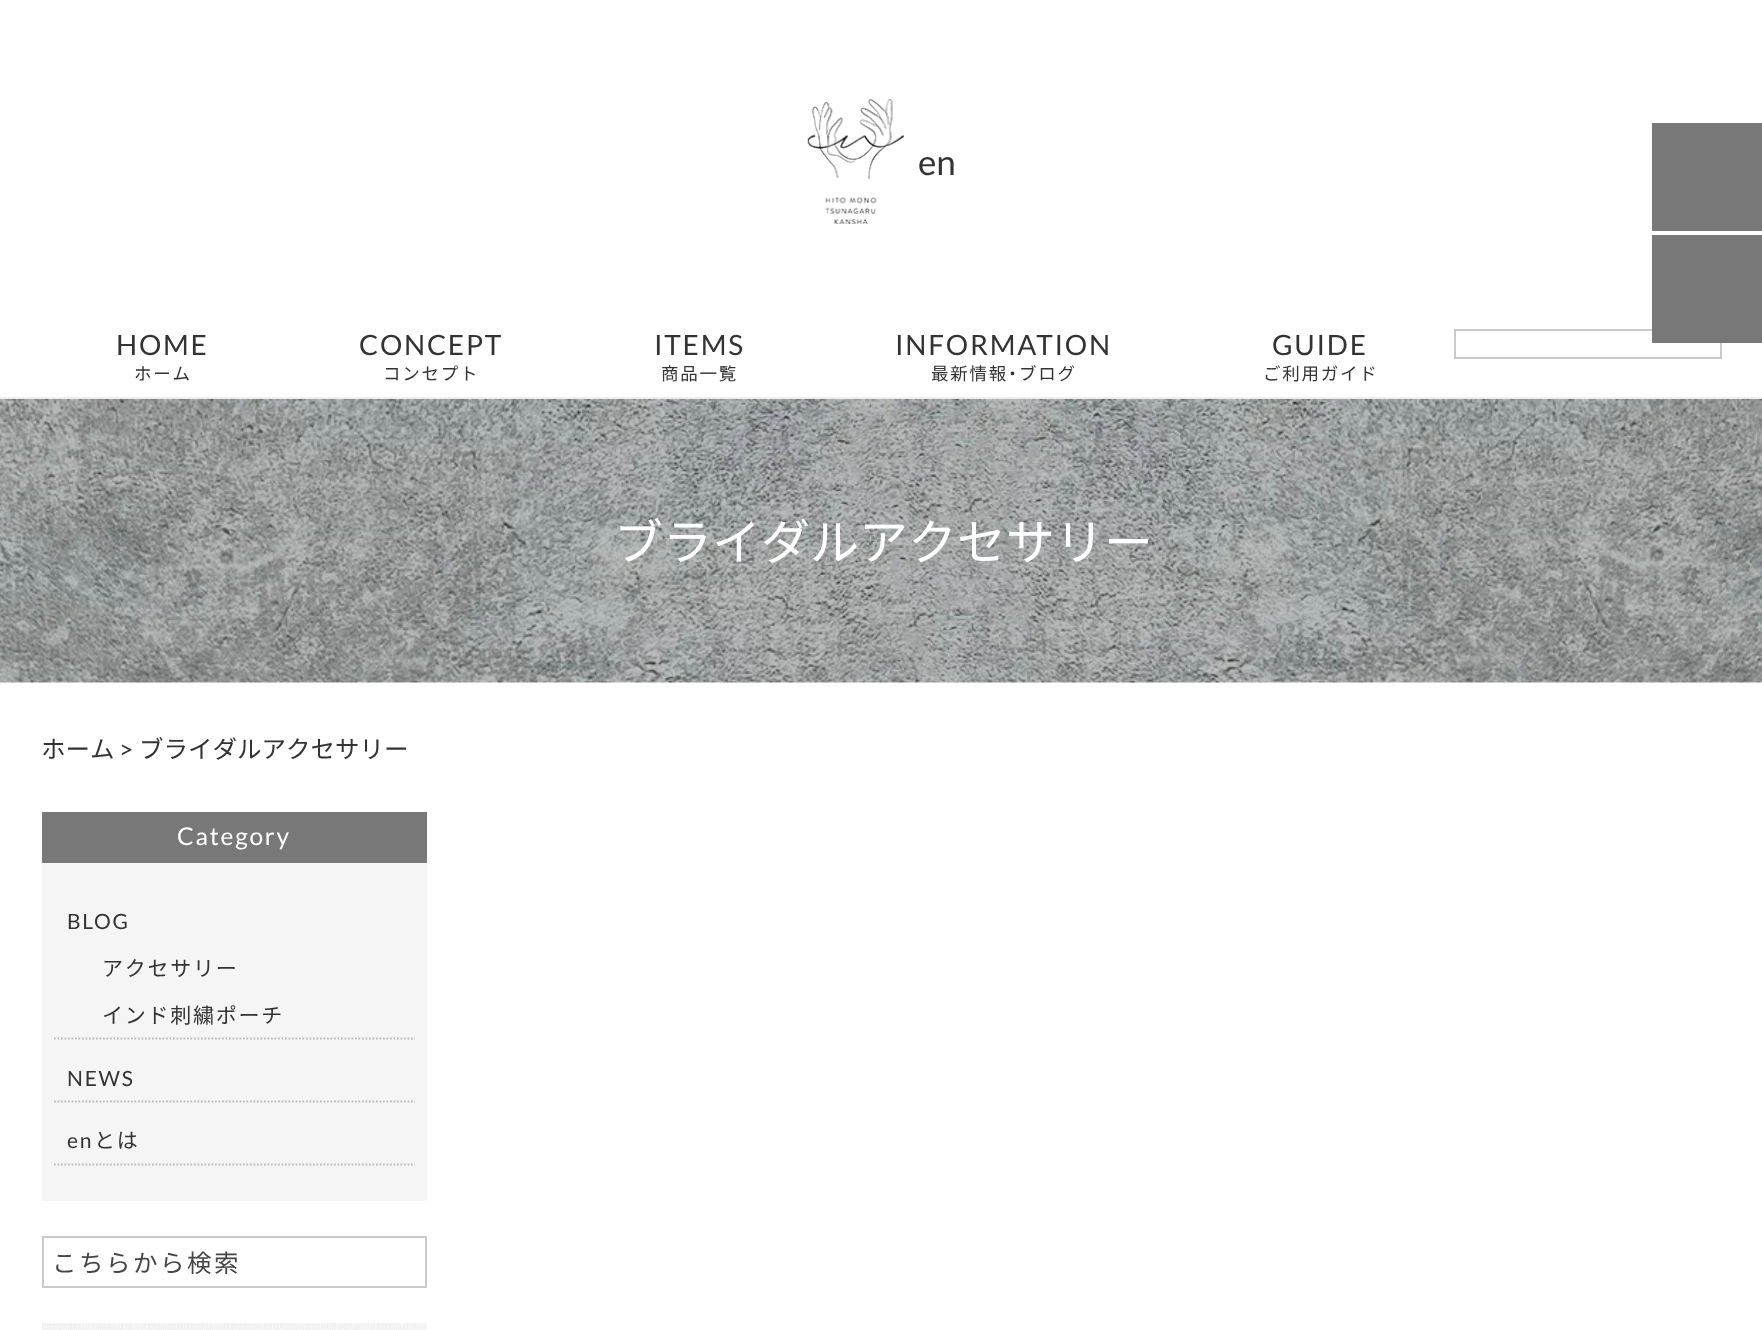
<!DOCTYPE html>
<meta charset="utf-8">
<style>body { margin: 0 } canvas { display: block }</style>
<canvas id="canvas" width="1762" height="1330"></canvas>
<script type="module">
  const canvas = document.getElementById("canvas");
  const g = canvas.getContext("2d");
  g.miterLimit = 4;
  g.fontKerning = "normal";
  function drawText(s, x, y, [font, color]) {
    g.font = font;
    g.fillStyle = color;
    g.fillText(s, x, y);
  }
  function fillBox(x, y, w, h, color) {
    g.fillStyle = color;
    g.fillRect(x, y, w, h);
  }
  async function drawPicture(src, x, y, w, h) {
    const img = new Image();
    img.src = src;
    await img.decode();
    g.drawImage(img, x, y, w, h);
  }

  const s1 = ["35px Lato", "#333333"];
  const s2 = ["28px Lato", "#333333"];
  const s3 = ["17.5px Noto Sans JP", "#333333"];
  const s4 = ["17.5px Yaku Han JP", "#333333"];
  const s5 = ["49px Noto Sans JP", "#FFFFFF"];
  const s6 = ["24.5px Noto Sans JP", "#333333"];
  const s7 = ["24.5px Lato", "#333333"];
  const s8 = ["24.5px Lato", "#FFFFFF"];
  const s9 = ["21px Lato", "#333333"];
  const s10 = ["21px Noto Sans JP", "#333333"];
  const s11 = ["24.5px Noto Sans JP", "#464646"];

  fillBox(0, 0, 1762, 1330, "#FFFFFF");
  fillBox(0, 397, 1762, 2, "#EEEEEE");
  await drawPicture("pic1.png", 807, 99, 97, 125);
  drawText("en", 918, 175, s1);
  g.letterSpacing = "1.75px";
  drawText("HOME", 116, 355, s2);
  drawText("ホーム", 134, 380, s3);
  drawText("CONCEPT", 359, 355, s2);
  drawText("コンセプト", 383, 380, s3);
  drawText("ITEMS", 654, 355, s2);
  drawText("商品一覧", 661, 380, s3);
  drawText("INFORMATION", 895, 355, s2);
  drawText("最新情報", 931, 380, s3);
  drawText("・", 1008, 380, s4);
  drawText("ブログ", 1019, 380, s3);
  drawText("GUIDE", 1272, 355, s2);
  drawText("ご利用ガイド", 1263, 380, s3);
  g.strokeStyle = "#CACACA";
  g.lineWidth = 2;
  g.strokeRect(1455, 330, 266, 28);
  fillBox(1652, 123, 110, 108, "#787878");
  fillBox(1652, 235, 110, 108, "#787878");
  await drawPicture("pic2.png", 0, 399, 1762, 284);
  g.letterSpacing = "0px";
  drawText("ブライダルアクセサリー", 614, 560, s5);
  drawText("ホーム", 41, 758, s6);
  drawText(">", 119, 758, s7);
  drawText("ブライダルアクセサリー", 139, 758, s6);
  fillBox(42, 863, 385, 338, "#F5F5F5");
  fillBox(42, 812, 385, 51, "#787878");
  g.letterSpacing = "1.75px";
  drawText("Category", 177, 845, s8);
  g.beginPath();
  g.moveTo(54, 1038.5);
  g.lineTo(415, 1038.5);
  g.strokeStyle = "#BFBABA";
  g.lineWidth = 1.8;
  g.setLineDash([1.75, 1.75]);
  g.stroke();
  drawText("BLOG", 67, 929, s9);
  drawText("アクセサリー", 102, 976, s10);
  drawText("インド刺繍ポーチ", 102, 1023, s10);
  g.beginPath();
  g.moveTo(54, 1101.5);
  g.lineTo(415, 1101.5);
  g.stroke();
  drawText("NEWS", 67, 1086, s9);
  g.beginPath();
  g.moveTo(54, 1164.5);
  g.lineTo(415, 1164.5);
  g.stroke();
  drawText("en", 67, 1148, s9);
  drawText("とは", 94, 1148, s10);
  g.strokeStyle = "#CACACA";
  g.lineWidth = 2;
  g.setLineDash([]);
  g.strokeRect(43, 1237, 383, 50);
  g.letterSpacing = "2.5px";
  drawText("こちらから検索", 52, 1272, s11);
  fillBox(416, 1323, 11, 7, "#F5F5F5");
  await drawPicture("pic3.png", 42, 1323, 374, 7);
</script>
